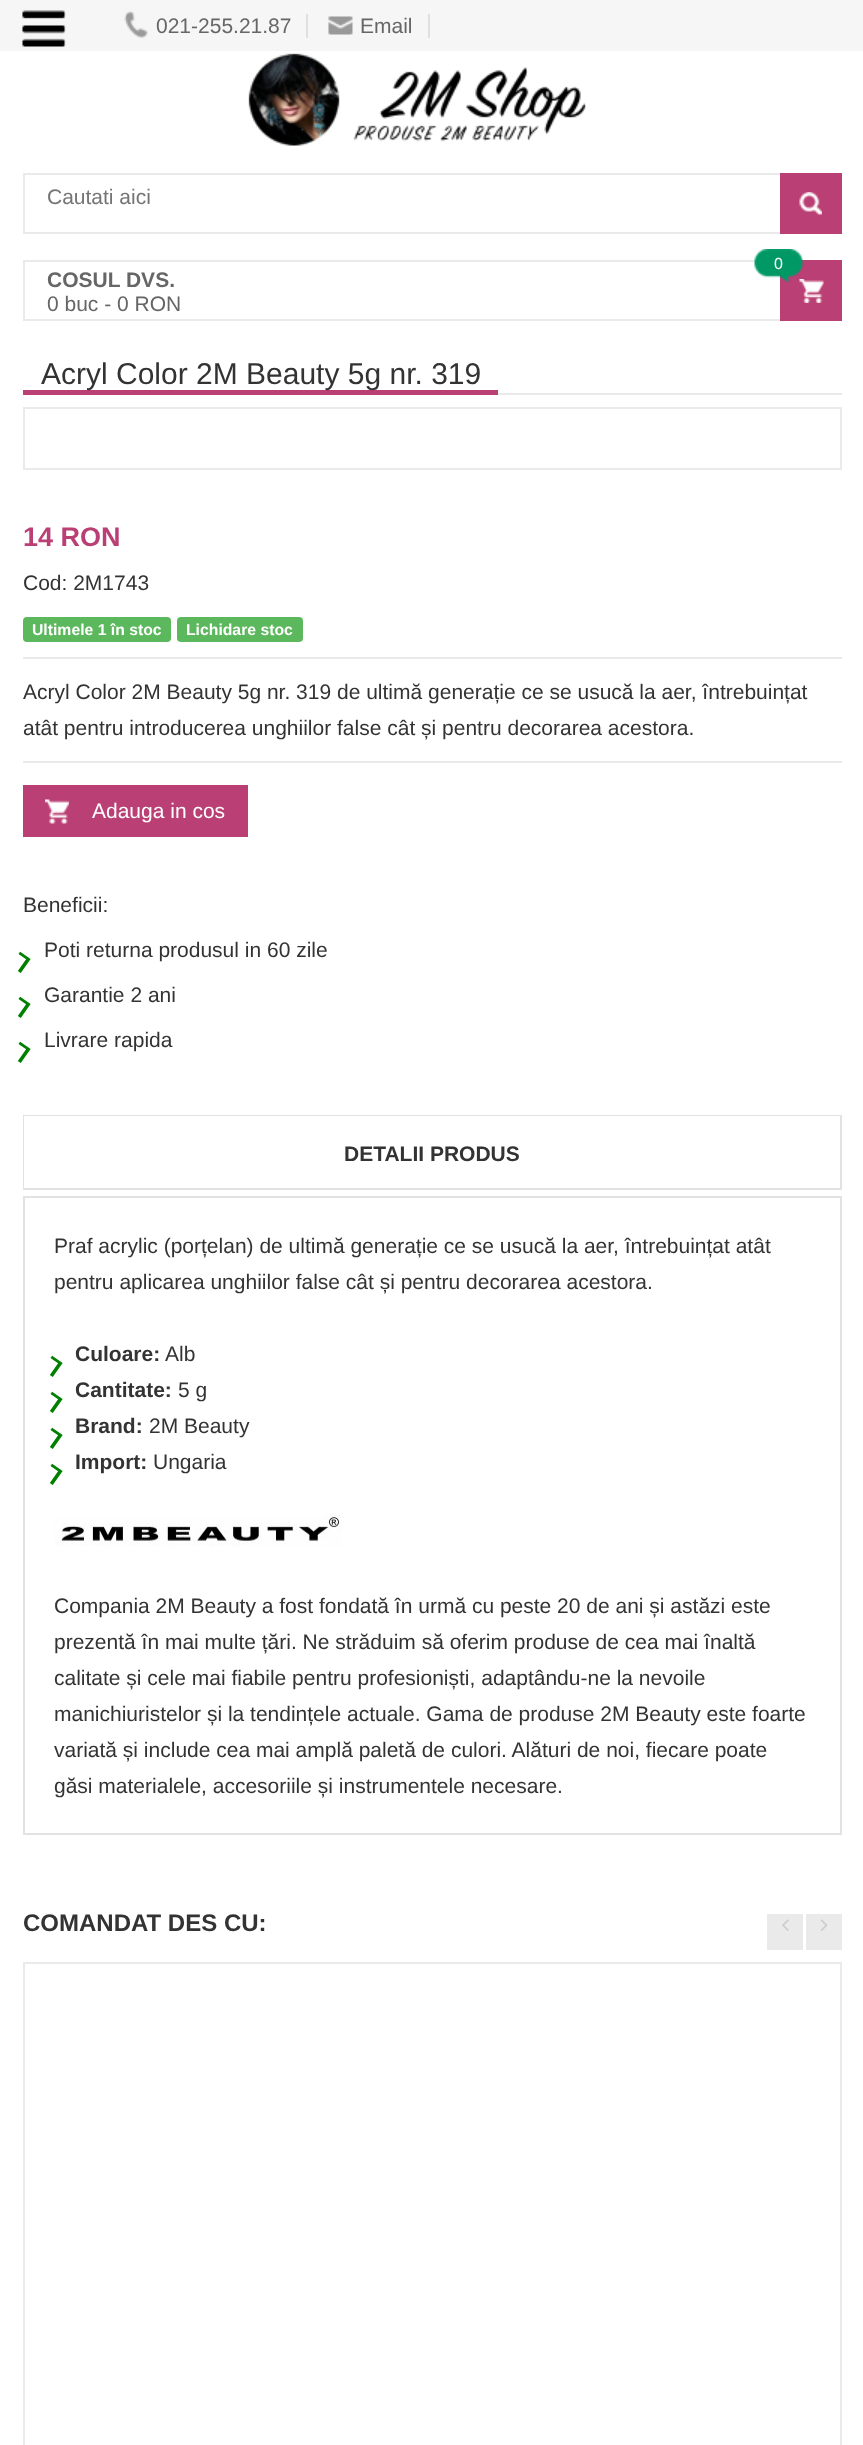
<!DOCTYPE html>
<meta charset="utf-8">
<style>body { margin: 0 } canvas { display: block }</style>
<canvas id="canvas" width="863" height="2445"></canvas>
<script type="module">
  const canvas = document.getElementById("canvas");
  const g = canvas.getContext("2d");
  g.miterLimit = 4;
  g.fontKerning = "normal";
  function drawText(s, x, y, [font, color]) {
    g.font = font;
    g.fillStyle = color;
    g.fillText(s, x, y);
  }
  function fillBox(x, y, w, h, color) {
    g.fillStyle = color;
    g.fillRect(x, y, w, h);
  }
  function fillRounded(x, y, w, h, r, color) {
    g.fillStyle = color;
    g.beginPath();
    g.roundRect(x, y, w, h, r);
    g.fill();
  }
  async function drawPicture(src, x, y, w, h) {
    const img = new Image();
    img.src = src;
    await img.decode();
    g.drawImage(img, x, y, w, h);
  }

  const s1 = ["21px Liberation Sans", "#666666"];
  const s2 = ["21px Liberation Sans", "#757575"];
  const s3 = ["bold 21px Liberation Sans", "#666666"];
  const s4 = ["16px Liberation Sans", "#FFFFFF"];
  const s5 = ["30px Liberation Sans", "#333333"];
  const s6 = ["bold 27px Liberation Sans", "#BA3F74"];
  const s7 = ["21px Liberation Sans", "#333333"];
  const s8 = ["bold 15.75px Liberation Sans", "#FFFFFF"];
  const s9 = ["21px Liberation Sans", "#FFFFFF"];
  const s10 = ["bold 21px Liberation Sans", "#333333"];
  const s11 = ["bold 24px Liberation Sans", "#333333"];

  fillBox(0, 0, 863, 2445, "#FFFFFF");
  fillBox(0, 0, 863, 51, "#F6F6F6");
  await drawPicture("pic1.png", 22, 10, 44, 37);
  fillBox(306, 14, 2, 24, "#E0E0E0");
  await drawPicture("pic2.png", 124, 11, 24, 27);
  drawText("021-255.21.87", 156, 33, s1);
  fillBox(428, 14, 2, 24, "#E0E0E0");
  await drawPicture("pic3.png", 328, 16, 25, 19);
  drawText("Email", 360, 33, s1);
  await drawPicture("pic4.png", 248, 53, 338, 93);
  g.strokeStyle = "#EAEAEA";
  g.lineWidth = 2;
  g.strokeRect(24, 174, 817, 59);
  drawText("Cautati aici", 47, 204, s2);
  fillBox(780, 173, 62, 61, "#BA3F74");
  await drawPicture("pic5.png", 799, 192, 23, 23);
  g.strokeRect(24, 261, 817, 59);
  drawText("COSUL DVS.", 47, 287, s3);
  fillBox(780, 260, 62, 61, "#BA3F74");
  await drawPicture("pic7.png", 799, 279, 25, 24);
  await drawPicture("pic6.png", 754, 249, 49, 33);
  drawText("0", 774, 269, s4);
  drawText("0 buc - 0 RON", 47, 311, s1);
  fillBox(498, 393, 344, 2, "#EAEAEA");
  fillBox(23, 390, 475, 5, "#BA3F74");
  drawText("Acryl Color 2M Beauty 5g nr. 319", 41, 384, s5);
  g.strokeRect(24, 408, 817, 61);
  drawText("14 RON", 23, 546, s6);
  drawText("Cod: 2M1743", 23, 590, s7);
  fillRounded(23, 617, 148, 25, 4, "#5CB85C");
  drawText("Ultimele 1 în stoc", 32, 635, s8);
  fillRounded(177, 617, 126, 25, 4, "#5CB85C");
  drawText("Lichidare stoc", 186, 635, s8);
  fillBox(23, 657, 819, 2, "#EAEAEA");
  drawText("Acryl Color 2M Beauty 5g nr. 319 de ultimă generație ce se usucă la aer, întrebuințat", 23, 699, s7);
  drawText("atât pentru introducerea unghiilor false cât și pentru decorarea acestora.", 23, 735, s7);
  fillBox(23, 761, 819, 2, "#EAEAEA");
  fillBox(23, 785, 225, 52, "#BA3F74");
  await drawPicture("pic8.png", 45, 799, 24, 25);
  drawText("Adauga in cos", 92, 818, s9);
  drawText("Beneficii:", 23, 912, s7);
  g.font = "bold 25px Liberation Sans";
  g.fillStyle = "#008000";
  g.save();
  g.translate(32, 960);
  g.rotate(-145 * Math.PI / 180);
  g.fillText("L", 0, 0);
  g.restore();
  drawText("Poti returna produsul in 60 zile", 44, 957, s7);
  g.font = "bold 25px Liberation Sans";
  g.fillStyle = "#008000";
  g.save();
  g.translate(32, 1005);
  g.rotate(-145 * Math.PI / 180);
  g.fillText("L", 0, 0);
  g.restore();
  drawText("Garantie 2 ani", 44, 1002, s7);
  g.font = "bold 25px Liberation Sans";
  g.fillStyle = "#008000";
  g.save();
  g.translate(32, 1050);
  g.rotate(-145 * Math.PI / 180);
  g.fillText("L", 0, 0);
  g.restore();
  drawText("Livrare rapida", 44, 1047, s7);
  fillBox(23, 1115, 819, 75, "#E2E2E2");
  fillBox(24, 1116, 816, 72, "#FFFFFF");
  drawText("DETALII PRODUS", 344, 1161, s10);
  g.strokeStyle = "#E2E2E2";
  g.strokeRect(24, 1197, 817, 637);
  drawText("Praf acrylic (porțelan) de ultimă generație ce se usucă la aer, întrebuințat atât", 54, 1253, s7);
  drawText("pentru aplicarea unghiilor false cât și pentru decorarea acestora.", 54, 1289, s7);
  g.font = "bold 25px Liberation Sans";
  g.fillStyle = "#008000";
  g.save();
  g.translate(64, 1364);
  g.rotate(-145 * Math.PI / 180);
  g.fillText("L", 0, 0);
  g.restore();
  drawText("Culoare:", 75, 1361, s10);
  drawText("Alb", 165, 1361, s7);
  g.font = "bold 25px Liberation Sans";
  g.fillStyle = "#008000";
  g.save();
  g.translate(64, 1400);
  g.rotate(-145 * Math.PI / 180);
  g.fillText("L", 0, 0);
  g.restore();
  drawText("Cantitate:", 75, 1397, s10);
  drawText("5 g", 178, 1397, s7);
  g.font = "bold 25px Liberation Sans";
  g.fillStyle = "#008000";
  g.save();
  g.translate(64, 1436);
  g.rotate(-145 * Math.PI / 180);
  g.fillText("L", 0, 0);
  g.restore();
  drawText("Brand:", 75, 1433, s10);
  drawText("2M Beauty", 149, 1433, s7);
  g.font = "bold 25px Liberation Sans";
  g.fillStyle = "#008000";
  g.save();
  g.translate(64, 1472);
  g.rotate(-145 * Math.PI / 180);
  g.fillText("L", 0, 0);
  g.restore();
  drawText("Import:", 75, 1469, s10);
  drawText("Ungaria", 153, 1469, s7);
  await drawPicture("pic9.png", 54, 1515, 288, 32);
  drawText("Compania 2M Beauty a fost fondată în urmă cu peste 20 de ani și astăzi este", 54, 1613, s7);
  drawText("prezentă în mai multe țări. Ne străduim să oferim produse de cea mai înaltă", 54, 1649, s7);
  drawText("calitate și cele mai fiabile pentru profesioniști, adaptându-ne la nevoile", 54, 1685, s7);
  drawText("manichiuristelor și la tendințele actuale. Gama de produse 2M Beauty este foarte", 54, 1721, s7);
  drawText("variată și include cea mai amplă paletă de culori. Alături de noi, fiecare poate", 54, 1757, s7);
  drawText("găsi materialele, accesoriile și instrumentele necesare.", 54, 1793, s7);
  drawText("COMANDAT DES CU:", 23, 1931, s11);
  fillBox(767, 1914, 36, 36, "#EAEAEA");
  await drawPicture("pic10.png", 782, 1919, 7, 12);
  fillBox(806, 1914, 36, 36, "#EAEAEA");
  await drawPicture("pic11.png", 820, 1919, 8, 12);
  g.strokeStyle = "#EAEAEA";
  g.strokeRect(24, 1963, 817, 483);
</script>
